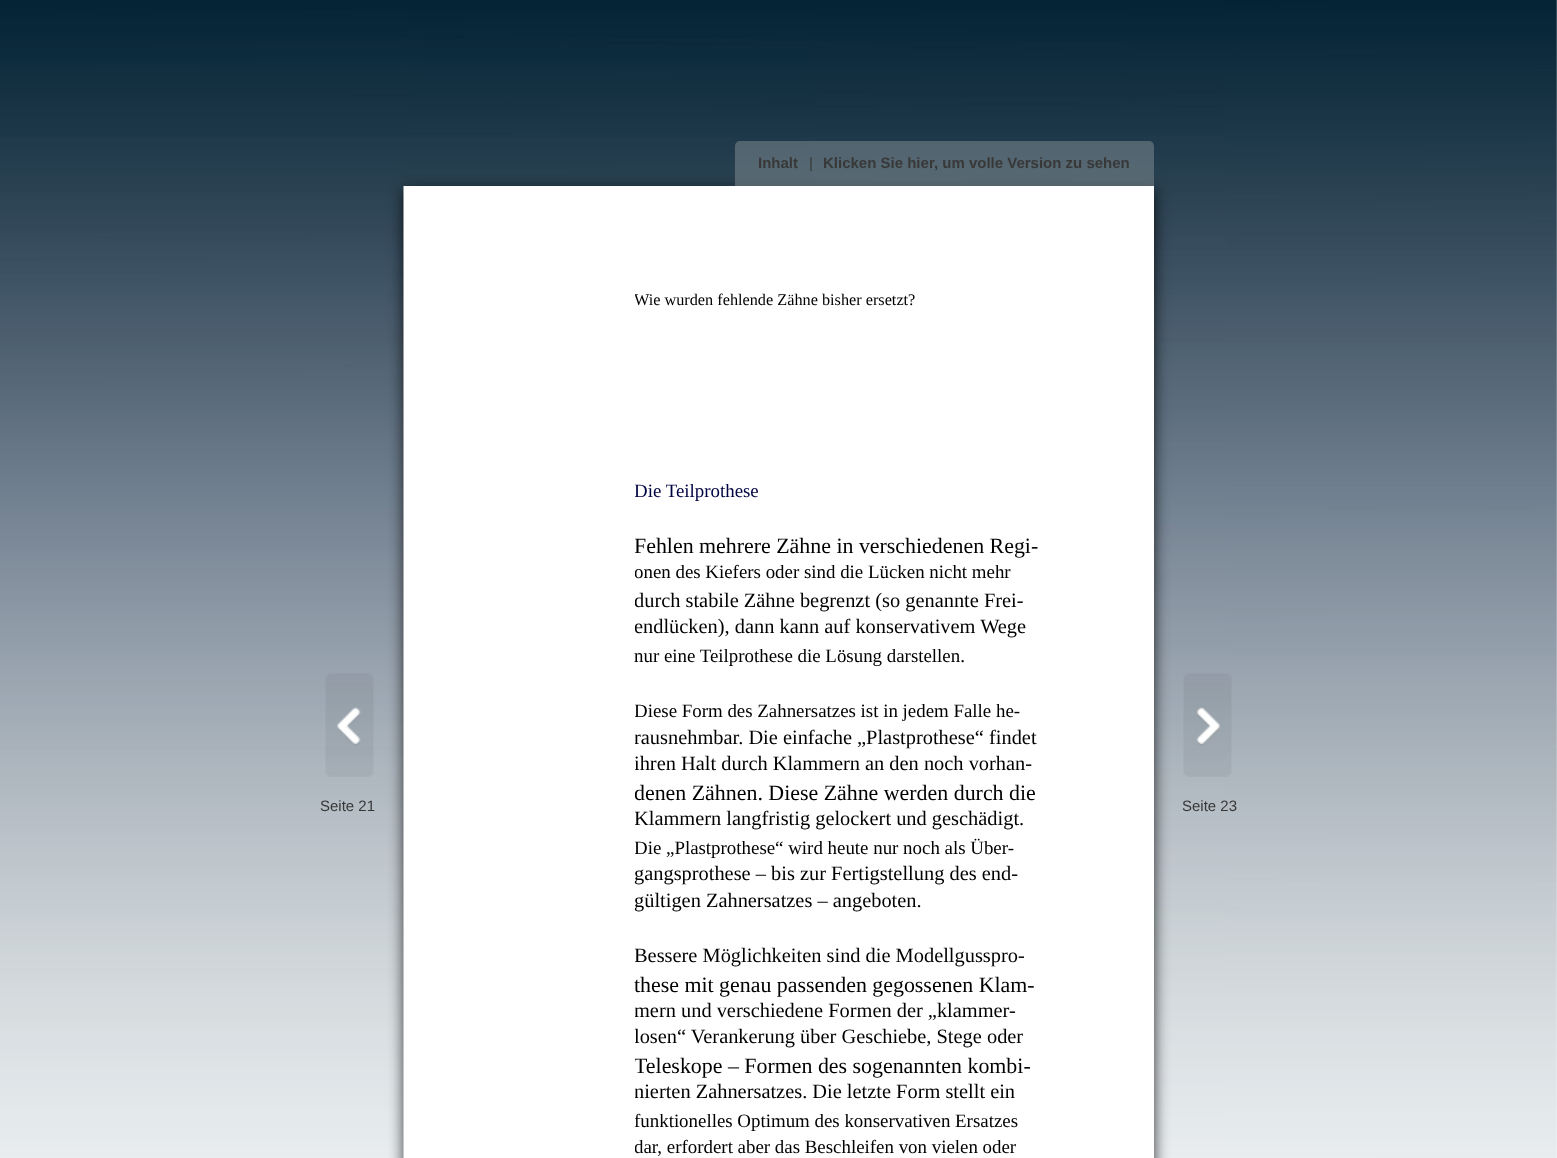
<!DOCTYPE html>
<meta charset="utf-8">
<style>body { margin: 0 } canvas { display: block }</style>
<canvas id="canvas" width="1557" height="1158"></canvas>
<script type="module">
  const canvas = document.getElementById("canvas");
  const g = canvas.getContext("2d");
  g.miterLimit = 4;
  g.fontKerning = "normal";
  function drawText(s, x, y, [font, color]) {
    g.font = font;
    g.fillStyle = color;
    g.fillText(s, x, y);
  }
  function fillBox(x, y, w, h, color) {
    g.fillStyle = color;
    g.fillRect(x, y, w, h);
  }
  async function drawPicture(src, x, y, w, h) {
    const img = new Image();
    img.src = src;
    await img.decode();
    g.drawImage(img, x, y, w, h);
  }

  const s1 = ["bold 15px Liberation Sans", "#383838"];
  const s2 = ["15px Liberation Sans", "#383838"];
  const s3 = ["16.25px Liberation Serif", "#000000"];
  const s4 = ["18.9px Liberation Serif", "#000342"];
  const s5 = ["21.9px Liberation Serif", "#000000"];
  const s6 = ["18.9px Liberation Serif", "#000000"];
  const s7 = ["20.4px Liberation Serif", "#000000"];

  fillBox(0, 0, 1557, 1158, "#FFFFFF");
  await drawPicture("pic1.png", 0, 0, 1557, 1158);
  g.fillStyle = "rgba(0, 0, 0, 0.8)";
  g.filter = "blur(7.5px)";
  g.beginPath();
  g.rect(404, 191, 750, 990);
  g.fill();
  g.filter = "none";
  g.fillStyle = "rgba(200, 200, 200, 0.3)";
  g.beginPath();
  g.roundRect(735, 141, 419, 45, [5, 5, 0, 0]);
  g.fill();
  drawText("Inhalt", 758, 168, s1);
  drawText("|", 809, 168, s2);
  drawText("Klicken Sie hier, um volle Version zu sehen", 823, 168, s1);
  fillBox(404, 186, 750, 972, "#FFFFFF");
  await drawPicture("pic2.png", 325, 673, 49, 104);
  drawText("Seite 21", 320, 811, s2);
  fillBox(403, 186, 1, 972, "rgba(255, 255, 255, 0.5)");
  g.save();
  g.beginPath();
  g.rect(635, 288, 280, 23);
  g.clip();
  drawText("Wie wurden fehlende Zähne bisher ersetzt?", 634, 305, s3);
  g.restore();
  g.save();
  g.beginPath();
  g.rect(635, 477, 129, 27);
  g.clip();
  drawText("Die Teilprothese", 634, 497, s4);
  g.restore();
  g.save();
  g.beginPath();
  g.rect(635, 533, 403, 27);
  g.clip();
  drawText("Fehlen mehrere Zähne in verschiedenen Regi-", 634, 553, s5);
  g.restore();
  g.save();
  g.beginPath();
  g.rect(635, 560, 403, 25);
  g.clip();
  drawText("onen des Kiefers oder sind die Lücken nicht mehr", 634, 578, s6);
  g.restore();
  g.save();
  g.beginPath();
  g.rect(635, 588, 403, 26);
  g.clip();
  drawText("durch stabile Zähne begrenzt (so genannte Frei-", 634, 607, s7);
  g.restore();
  g.save();
  g.beginPath();
  g.rect(635, 614, 403, 27);
  g.clip();
  drawText("endlücken), dann kann auf konservativem Wege", 634, 633, s7);
  g.restore();
  drawText("nur eine Teilprothese die Lösung darstellen.", 634, 662, s6);
  g.save();
  g.beginPath();
  g.rect(635, 698, 403, 27);
  g.clip();
  drawText("Diese Form des Zahnersatzes ist in jedem Falle he-", 634, 717, s6);
  g.restore();
  g.save();
  g.beginPath();
  g.rect(635, 725, 403, 25);
  g.clip();
  drawText("rausnehmbar. Die einfache „Plastprothese“ findet", 634, 744, s7);
  g.restore();
  g.save();
  g.beginPath();
  g.rect(635, 750, 403, 27);
  g.clip();
  drawText("ihren Halt durch Klammern an den noch vorhan-", 634, 770, s7);
  g.restore();
  g.save();
  g.beginPath();
  g.rect(635, 779, 403, 27);
  g.clip();
  drawText("denen Zähnen. Diese Zähne werden durch die", 634, 800, s5);
  g.restore();
  g.save();
  g.beginPath();
  g.rect(635, 806, 403, 27);
  g.clip();
  drawText("Klammern langfristig gelockert und geschädigt.", 634, 825, s7);
  g.restore();
  g.save();
  g.beginPath();
  g.rect(635, 834, 403, 27);
  g.clip();
  drawText("Die „Plastprothese“ wird heute nur noch als Über-", 634, 854, s6);
  g.restore();
  drawText("gangsprothese – bis zur Fertigstellung des end-", 634, 880, s7);
  drawText("gültigen Zahnersatzes – angeboten.", 634, 907, s7);
  g.save();
  g.beginPath();
  g.rect(635, 942, 403, 27);
  g.clip();
  drawText("Bessere Möglichkeiten sind die Modellgusspro-", 634, 962, s7);
  g.restore();
  drawText("these mit genau passenden gegossenen Klam-", 634, 992, s5);
  g.save();
  g.beginPath();
  g.rect(635, 998, 403, 25);
  g.clip();
  drawText("mern und verschiedene Formen der „klammer-", 634, 1017, s7);
  g.restore();
  g.save();
  g.beginPath();
  g.rect(635, 1023, 403, 27);
  g.clip();
  drawText("losen“ Verankerung über Geschiebe, Stege oder", 634, 1043, s7);
  g.restore();
  g.save();
  g.beginPath();
  g.rect(635, 1052, 403, 27);
  g.clip();
  drawText("Teleskope – Formen des sogenannten kombi-", 634, 1073, s5);
  g.restore();
  g.save();
  g.beginPath();
  g.rect(635, 1079, 403, 27);
  g.clip();
  drawText("nierten Zahnersatzes. Die letzte Form stellt ein", 634, 1098, s7);
  g.restore();
  g.save();
  g.beginPath();
  g.rect(635, 1107, 403, 27);
  g.clip();
  drawText("funktionelles Optimum des konservativen Ersatzes", 634, 1127, s6);
  g.restore();
  g.save();
  g.beginPath();
  g.rect(635, 1134, 403, 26);
  g.clip();
  drawText("dar, erfordert aber das Beschleifen von vielen oder", 634, 1153, s6);
  g.restore();
  await drawPicture("pic3.png", 1183, 673, 49, 104);
  drawText("Seite 23", 1182, 811, s2);
</script>
